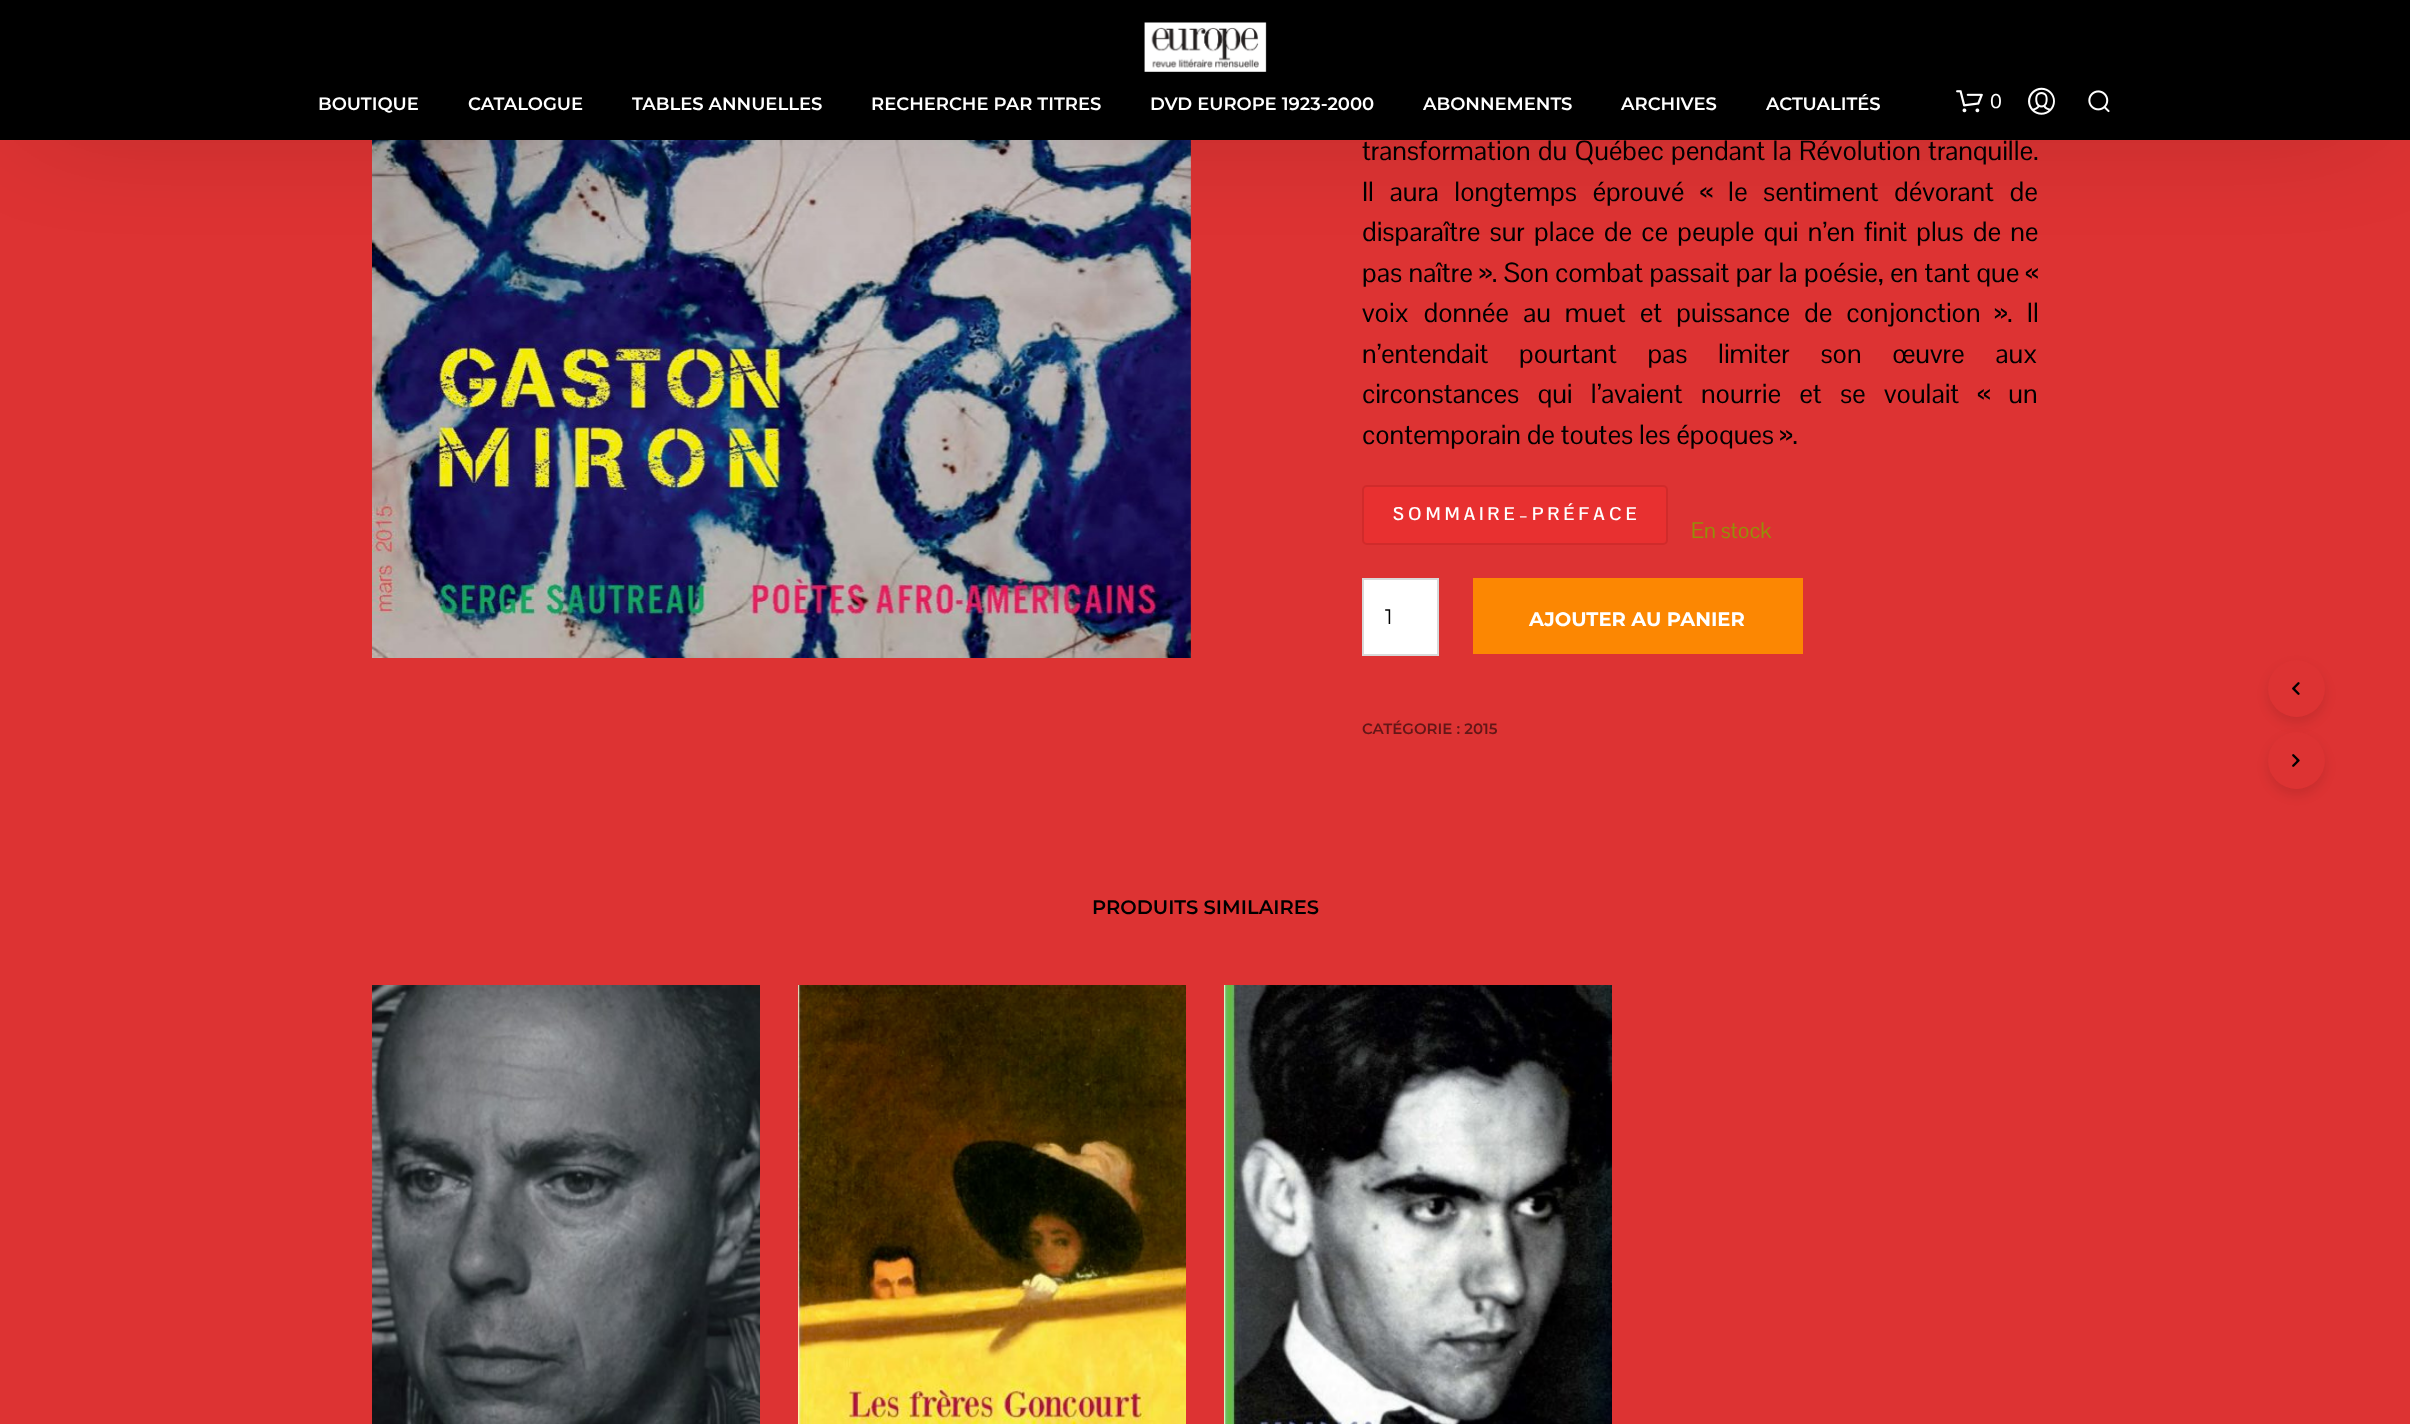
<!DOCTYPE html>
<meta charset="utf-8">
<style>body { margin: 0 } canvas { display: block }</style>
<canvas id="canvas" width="2410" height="1424"></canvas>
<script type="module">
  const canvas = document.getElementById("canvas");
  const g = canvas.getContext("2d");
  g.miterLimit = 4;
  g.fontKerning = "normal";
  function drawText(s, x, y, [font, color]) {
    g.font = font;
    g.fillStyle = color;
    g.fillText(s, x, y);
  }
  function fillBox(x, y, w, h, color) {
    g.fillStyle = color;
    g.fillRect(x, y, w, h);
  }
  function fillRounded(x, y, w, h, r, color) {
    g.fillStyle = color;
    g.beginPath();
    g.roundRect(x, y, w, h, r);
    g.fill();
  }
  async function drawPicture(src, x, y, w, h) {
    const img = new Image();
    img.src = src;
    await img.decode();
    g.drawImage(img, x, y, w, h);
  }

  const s1 = ["600 18px Montserrat", "#FFFFFF"];
  const s2 = ["19.5px Pontano Sans", "#FFFFFF"];
  const s3 = ["27px Pontano Sans", "#000000"];
  const s4 = ["bold 18px Pontano Sans", "#FFFFFF"];
  const s5 = ["22px Pontano Sans", "#958E09"];
  const s6 = ["21px Montserrat", "#000000"];
  const s7 = ["bold 19.5px Montserrat", "#FFFFFF"];
  const s8 = ["600 15px Montserrat", "#631717"];
  const s9 = ["600 19.5px Montserrat", "#000000"];

  fillBox(0, 0, 2410, 1424, "#DD3333");
  await drawPicture("pic5.png", 372, 140, 819, 518);
  g.fillStyle = "rgba(0, 0, 0, 0.29)";
  g.filter = "blur(61px)";
  g.beginPath();
  g.rect(38, 42, 2329, 60);
  g.fill();
  g.filter = "none";
  fillBox(0, 0, 2410, 140, "#000000");
  await drawPicture("pic1.png", 1144, 22, 123, 50);
  drawText("BOUTIQUE", 318, 110, s1);
  drawText("CATALOGUE", 468, 110, s1);
  drawText("TABLES ANNUELLES", 632, 110, s1);
  drawText("RECHERCHE PAR TITRES", 871, 110, s1);
  drawText("DVD EUROPE 1923-2000", 1150, 110, s1);
  drawText("ABONNEMENTS", 1423, 110, s1);
  drawText("ARCHIVES", 1621, 110, s1);
  drawText("ACTUALITÉS", 1766, 110, s1);
  await drawPicture("pic2.png", 1956, 90, 27, 23);
  drawText("0", 1990, 108, s2);
  await drawPicture("pic3.png", 2028, 87, 27, 28);
  await drawPicture("pic4.png", 2088, 90, 22, 23);
  g.wordSpacing = "1.5px";
  drawText("transformation du Québec pendant la Révolution tranquille.", 1362, 160, s3);
  g.wordSpacing = "9.75px";
  drawText("Il aura longtemps éprouvé « le sentiment dévorant de", 1362, 201, s3);
  g.wordSpacing = "3.4px";
  drawText("disparaître sur place de ce peuple qui n’en finit plus de ne", 1362, 241, s3);
  g.wordSpacing = "0.5px";
  drawText("pas naître ». Son combat passait par la poésie, en tant que «", 1362, 282, s3);
  g.wordSpacing = "8.25px";
  drawText("voix donnée au muet et puissance de conjonction ». Il", 1362, 322, s3);
  g.wordSpacing = "24.75px";
  drawText("n’entendait pourtant pas limiter son œuvre aux", 1362, 363, s3);
  g.wordSpacing = "12.5px";
  drawText("circonstances qui l’avaient nourrie et se voulait « un", 1362, 403, s3);
  g.wordSpacing = "0px";
  drawText("contemporain de toutes les époques ».", 1362, 444, s3);
  fillRounded(1362, 485, 306, 60, 5, "#E83030");
  g.beginPath();
  g.roundRect(1363, 486, 304, 58, 4);
  g.strokeStyle = "rgba(0, 0, 0, 0.1)";
  g.lineWidth = 2;
  g.stroke();
  drawText("S O M M A I R E – P R É F A C E", 1393, 520, s4);
  drawText("En stock", 1691, 538, s5);
  g.fillStyle = "#FFFFFF";
  g.beginPath();
  g.rect(1363, 579, 75, 76);
  g.fill();
  g.strokeStyle = "#D9D9D9";
  g.stroke();
  drawText("1", 1385, 624, s6);
  fillBox(1473, 578, 330, 76, "#FC8702");
  drawText("AJOUTER AU PANIER", 1529, 626, s7);
  drawText("CATÉGORIE : 2015", 1362, 734, s8);
  g.fillStyle = "rgba(0, 0, 0, 0.1)";
  g.filter = "blur(6px)";
  g.beginPath();
  g.roundRect(2268, 666, 57, 57, 28.5);
  g.fill();
  g.filter = "none";
  g.fillStyle = "#DD3333";
  g.beginPath();
  g.arc(2296.5, 688.5, 28.5, 0, Math.PI * 2);
  g.fill();
  await drawPicture("pic6.png", 2292, 682, 8, 13);
  g.fillStyle = "rgba(0, 0, 0, 0.1)";
  g.filter = "blur(6px)";
  g.beginPath();
  g.roundRect(2268, 738, 57, 57, 28.5);
  g.fill();
  g.filter = "none";
  g.fillStyle = "#DD3333";
  g.beginPath();
  g.arc(2296.5, 760.5, 28.5, 0, Math.PI * 2);
  g.fill();
  await drawPicture("pic7.png", 2292, 754, 8, 13);
  drawText("PRODUITS SIMILAIRES", 1092, 914, s9);
  await drawPicture("pic8.png", 372, 985, 388, 439);
  await drawPicture("pic9.png", 798, 985, 388, 439);
  await drawPicture("pic10.png", 1224, 985, 388, 439);
</script>
